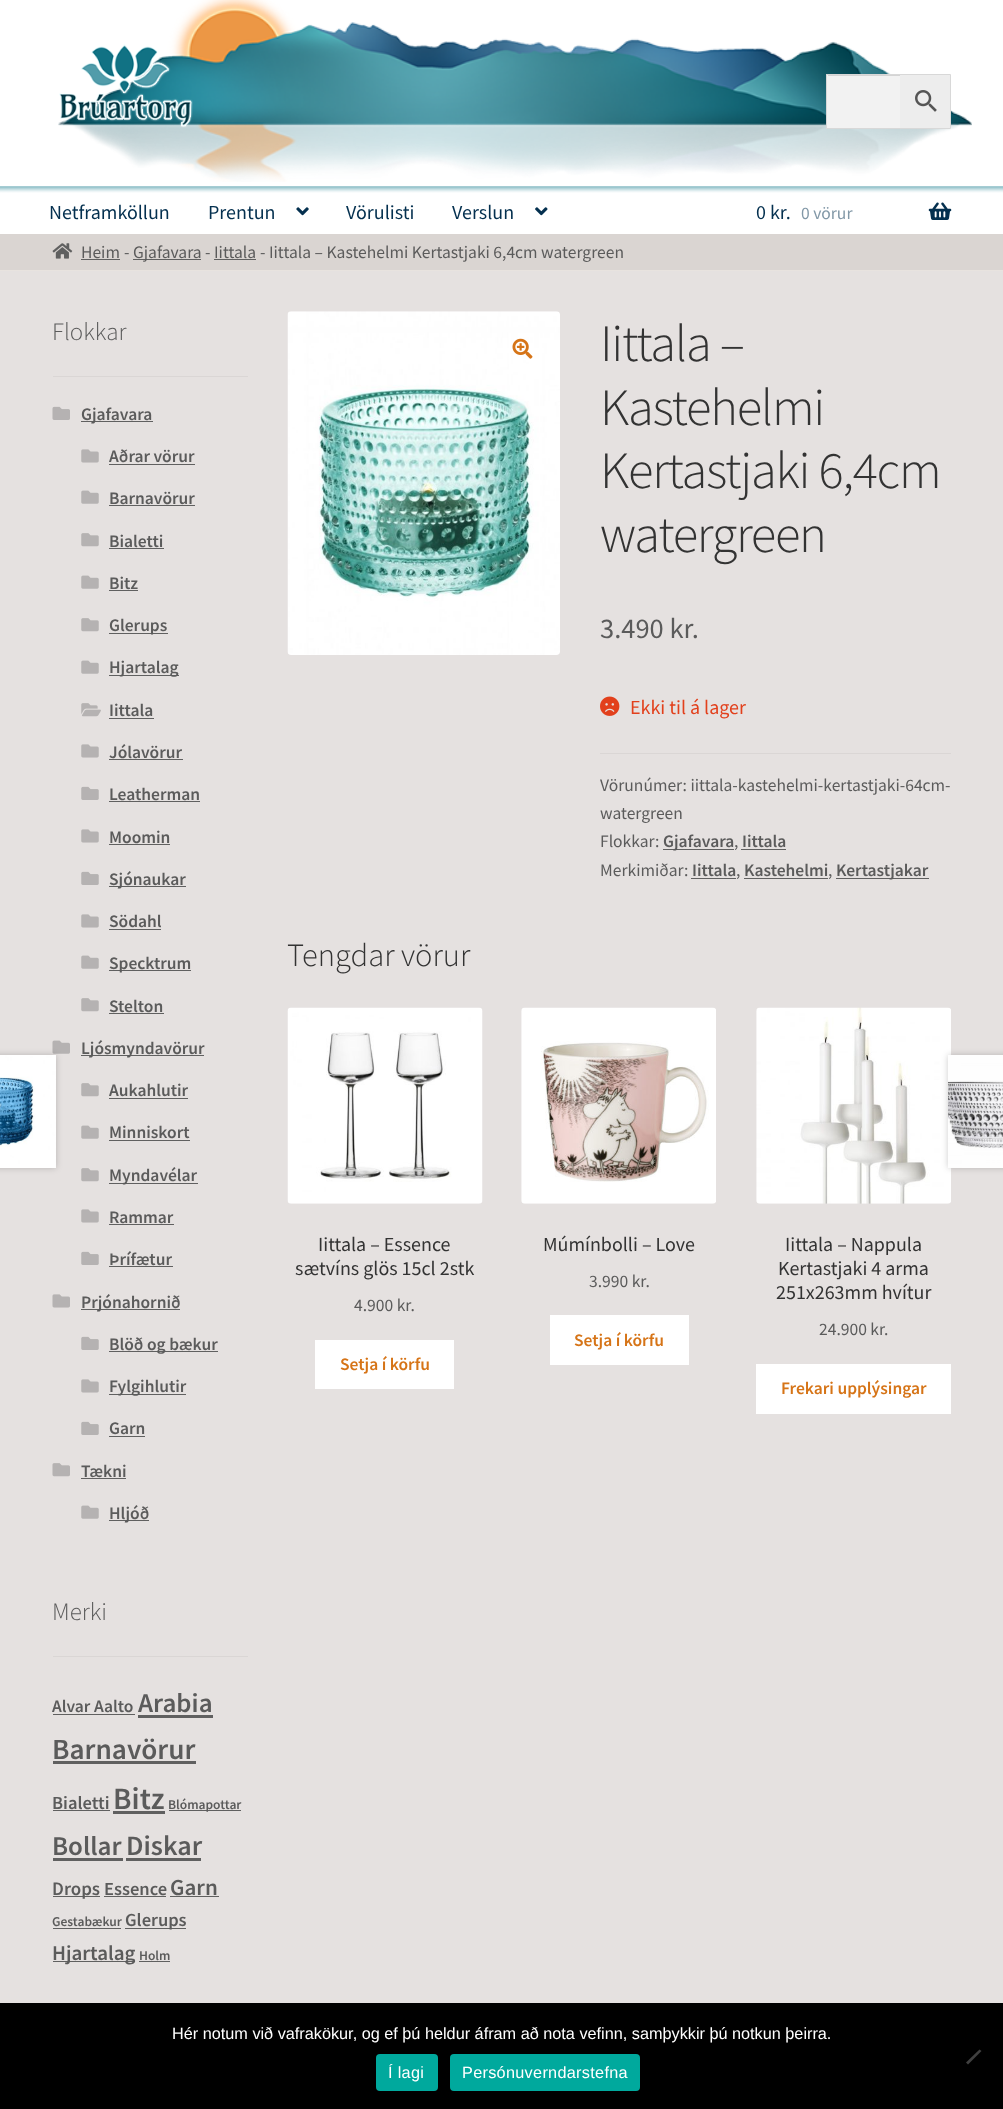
<!DOCTYPE html>
<meta charset="utf-8">
<style>body { margin: 0 } canvas { display: block }</style>
<canvas id="canvas" width="1003" height="2109"></canvas>
<script type="module">
  const canvas = document.getElementById("canvas");
  const g = canvas.getContext("2d");
  g.miterLimit = 4;
  g.fontKerning = "normal";
  function drawText(s, x, y, [font, color]) {
    g.font = font;
    g.fillStyle = color;
    g.fillText(s, x, y);
  }
  function fillBox(x, y, w, h, color) {
    g.fillStyle = color;
    g.fillRect(x, y, w, h);
  }
  function fillRounded(x, y, w, h, r, color) {
    g.fillStyle = color;
    g.beginPath();
    g.roundRect(x, y, w, h, r);
    g.fill();
  }
  async function drawPicture(src, x, y, w, h) {
    const img = new Image();
    img.src = src;
    await img.decode();
    g.drawImage(img, x, y, w, h);
  }

  const s1 = ["20px Source Sans Pro", "#04304F"];
  const s2 = ["17.5px Source Sans Pro", "#8298A7"];
  const s3 = ["17.5px Source Sans Pro", "#5B5B5B"];
  const s4 = ["300 25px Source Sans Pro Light", "#5B5B5B"];
  const s5 = ["600 17.5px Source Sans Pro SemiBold", "#5B5B5B"];
  const s6 = ["600 27px Source Sans Pro SemiBold", "#5B5B5B"];
  const s7 = ["600 29.25px Source Sans Pro SemiBold", "#5B5B5B"];
  const s8 = ["600 18.5px Source Sans Pro SemiBold", "#5B5B5B"];
  const s9 = ["600 31px Source Sans Pro SemiBold", "#5B5B5B"];
  const s10 = ["600 13.5px Source Sans Pro SemiBold", "#5B5B5B"];
  const s11 = ["600 28px Source Sans Pro SemiBold", "#5B5B5B"];
  const s12 = ["600 19px Source Sans Pro SemiBold", "#5B5B5B"];
  const s13 = ["600 23px Source Sans Pro SemiBold", "#5B5B5B"];
  const s14 = ["600 21px Source Sans Pro SemiBold", "#5B5B5B"];
  const s15 = ["300 52.5px Source Sans Pro Light", "#333333"];
  const s16 = ["28.5px Source Sans Pro", "#5B5B5B"];
  const s17 = ["20px Source Sans Pro", "#E2401C"];
  const s18 = ["300 32.5px Source Sans Pro Light", "#333333"];
  const s19 = ["20px Source Sans Pro", "#333333"];
  const s20 = ["600 17.5px Source Sans Pro SemiBold", "#D67417"];
  const s21 = ["16.25px Liberation Sans", "#FFFFFF"];

  fillBox(0, 0, 1003, 2109, "#E5E1E0");
  fillBox(0, 0, 1003, 234, "#FFFFFF");
  await drawPicture("pic1.png", 58, 0, 914, 182);
  await drawPicture("pic2.png", 59, 44, 134, 84);
  g.fillStyle = "#EDEDED";
  g.beginPath();
  g.rect(899.5, 74.5, 51, 54);
  g.fill();
  g.strokeStyle = "#D8D8D8";
  g.stroke();
  fillBox(827, 75, 73, 53, "#F2F2F2");
  fillBox(828, 75, 72, 1, "#D4D4D4");
  g.save();
  g.beginPath();
  g.rect(826, 74, 74, 55);
  g.clip();
  g.strokeRect(826.5, 74.5, 82, 54);
  g.restore();
  await drawPicture("pic3.png", 915, 90, 22, 22);
  await drawPicture("pic4.png", 0, 186, 1003, 7);
  drawText("Netframköllun", 49, 219, s1);
  drawText("Prentun", 208, 219, s1);
  await drawPicture("pic5.png", 296, 207, 13, 9);
  drawText("Vörulisti", 346, 219, s1);
  drawText("Verslun", 452, 219, s1);
  await drawPicture("pic6.png", 535, 207, 13, 9);
  drawText("0 kr.", 756, 219, s1);
  drawText("0 vörur", 801, 219, s2);
  await drawPicture("pic7.png", 928, 202, 24, 18);
  fillBox(0, 234, 1003, 36, "#DAD5D2");
  fillBox(0, 270, 1003, 1, "#E8E3DF");
  await drawPicture("pic8.png", 52, 243, 21, 16);
  drawText("Heim", 81, 258, s3);
  fillBox(81, 259, 39, 1, "#606060");
  drawText("-", 124, 258, s3);
  fillBox(133, 259, 68, 1, "#606060");
  drawText("Gjafavara", 133, 258, s3);
  drawText("-", 205, 258, s3);
  drawText("Iittala", 214, 258, s3);
  fillBox(214, 259, 42, 1, "#606060");
  drawText("- Iittala – Kastehelmi Kertastjaki 6,4cm watergreen", 260, 258, s3);
  fillBox(53, 376, 195, 1, "#DAD6D5");
  drawText("Flokkar", 52, 340, s4);
  await drawPicture("pic9.png", 52, 406, 18, 14);
  fillBox(81, 421, 72, 1, "#606060");
  drawText("Gjafavara", 81, 420, s5);
  await drawPicture("pic10.png", 81, 449, 18, 14);
  drawText("Aðrar vörur", 109, 462, s5);
  fillBox(109, 464, 86, 1, "#606060");
  await drawPicture("pic11.png", 81, 490, 18, 14);
  drawText("Barnavörur", 109, 504, s5);
  fillBox(109, 505, 86, 1, "#606060");
  await drawPicture("pic12.png", 81, 533, 18, 14);
  drawText("Bialetti", 109, 547, s5);
  fillBox(109, 548, 55, 1, "#606060");
  await drawPicture("pic11.png", 81, 575, 18, 14);
  drawText("Bitz", 109, 589, s5);
  fillBox(109, 590, 29, 1, "#606060");
  await drawPicture("pic12.png", 81, 618, 18, 14);
  fillBox(109, 633, 59, 1, "#606060");
  drawText("Glerups", 109, 631, s5);
  await drawPicture("pic11.png", 81, 660, 18, 14);
  fillBox(109, 675, 70, 1, "#606060");
  drawText("Hjartalag", 109, 673, s5);
  await drawPicture("pic13.png", 81, 703, 20, 14);
  drawText("Iittala", 109, 716, s5);
  fillBox(109, 718, 45, 1, "#606060");
  await drawPicture("pic10.png", 81, 744, 18, 14);
  drawText("Jólavörur", 109, 758, s5);
  fillBox(109, 759, 74, 1, "#606060");
  await drawPicture("pic14.png", 81, 786, 18, 14);
  drawText("Leatherman", 109, 800, s5);
  fillBox(109, 801, 91, 1, "#606060");
  await drawPicture("pic10.png", 81, 829, 18, 14);
  drawText("Moomin", 109, 843, s5);
  fillBox(109, 844, 61, 1, "#606060");
  await drawPicture("pic14.png", 81, 871, 18, 14);
  fillBox(109, 886, 77, 1, "#606060");
  drawText("Sjónaukar", 109, 885, s5);
  await drawPicture("pic10.png", 81, 914, 18, 14);
  drawText("Södahl", 109, 927, s5);
  fillBox(109, 929, 52, 1, "#606060");
  await drawPicture("pic11.png", 81, 955, 18, 14);
  fillBox(109, 970, 82, 1, "#606060");
  drawText("Specktrum", 109, 969, s5);
  await drawPicture("pic12.png", 81, 998, 18, 14);
  drawText("Stelton", 109, 1012, s5);
  fillBox(109, 1013, 55, 1, "#606060");
  await drawPicture("pic15.png", 52, 1040, 18, 14);
  fillBox(81, 1055, 123, 1, "#606060");
  drawText("Ljósmyndavörur", 81, 1054, s5);
  await drawPicture("pic12.png", 81, 1083, 18, 14);
  drawText("Aukahlutir", 109, 1096, s5);
  fillBox(109, 1098, 79, 1, "#606060");
  await drawPicture("pic11.png", 81, 1125, 18, 14);
  drawText("Minniskort", 109, 1138, s5);
  fillBox(109, 1140, 81, 1, "#606060");
  await drawPicture("pic12.png", 81, 1168, 18, 14);
  fillBox(109, 1183, 89, 1, "#606060");
  drawText("Myndavélar", 109, 1181, s5);
  await drawPicture("pic10.png", 81, 1209, 18, 14);
  drawText("Rammar", 109, 1223, s5);
  fillBox(109, 1224, 65, 1, "#606060");
  await drawPicture("pic14.png", 81, 1251, 18, 14);
  drawText("Þrífætur", 109, 1265, s5);
  fillBox(109, 1266, 64, 1, "#606060");
  await drawPicture("pic16.png", 52, 1294, 18, 14);
  fillBox(81, 1309, 99, 1, "#606060");
  drawText("Prjónahornið", 81, 1308, s5);
  await drawPicture("pic14.png", 81, 1336, 18, 14);
  fillBox(109, 1351, 109, 1, "#606060");
  drawText("Blöð og bækur", 109, 1350, s5);
  await drawPicture("pic10.png", 81, 1379, 18, 14);
  fillBox(109, 1394, 77, 1, "#606060");
  drawText("Fylgihlutir", 109, 1392, s5);
  await drawPicture("pic14.png", 81, 1421, 18, 14);
  drawText("Garn", 109, 1434, s5);
  fillBox(109, 1436, 36, 1, "#606060");
  await drawPicture("pic17.png", 52, 1463, 18, 14);
  drawText("Tækni", 81, 1477, s5);
  fillBox(81, 1478, 45, 1, "#606060");
  await drawPicture("pic11.png", 81, 1505, 18, 14);
  fillBox(109, 1520, 40, 1, "#606060");
  drawText("Hljóð", 109, 1519, s5);
  fillBox(53, 1656, 195, 1, "#DAD6D5");
  drawText("Merki", 52, 1620, s4);
  drawText("Alvar Aalto", 52, 1712, s5);
  fillBox(53, 1714, 82, 1, "#606060");
  drawText("Arabia", 138, 1712, s6);
  fillBox(138, 1715, 75, 3, "#606060");
  drawText("Barnavörur", 52, 1759, s7);
  fillBox(53, 1761, 143, 3, "#606060");
  drawText("Bialetti", 52, 1809, s8);
  fillBox(53, 1810, 57, 1, "#606060");
  drawText("Bitz", 113, 1809, s9);
  fillBox(113, 1811, 52, 3, "#606060");
  fillBox(169, 1810, 72, 1, "#606060");
  drawText("Blómapottar", 168, 1809, s10);
  drawText("Bollar", 52, 1855, s6);
  fillBox(53, 1858, 70, 3, "#606060");
  drawText("Diskar", 126, 1855, s11);
  fillBox(126, 1858, 75, 3, "#606060");
  fillBox(53, 1896, 47, 1, "#606060");
  drawText("Drops", 52, 1895, s12);
  drawText("Essence", 104, 1895, s8);
  fillBox(104, 1896, 62, 1, "#606060");
  drawText("Garn", 170, 1895, s13);
  fillBox(170, 1896, 49, 1, "#606060");
  drawText("Gestabækur", 52, 1926, s10);
  fillBox(53, 1928, 68, 1, "#606060");
  fillBox(125, 1928, 61, 1, "#606060");
  drawText("Glerups", 125, 1926, s8);
  fillBox(53, 1961, 82, 1, "#606060");
  drawText("Hjartalag", 52, 1960, s14);
  drawText("Holm", 139, 1960, s10);
  fillBox(139, 1961, 31, 1, "#606060");
  await drawPicture("pic18.png", 287, 311, 273, 344);
  await drawPicture("pic19.png", 512, 338, 21, 21);
  g.letterSpacing = "-1.25px";
  drawText("Iittala –", 600, 361, s15);
  drawText("Kastehelmi", 600, 425, s15);
  drawText("Kertastjaki 6,4cm", 600, 488, s15);
  drawText("watergreen", 600, 552, s15);
  g.letterSpacing = "0px";
  drawText("3.490 kr.", 600, 638, s16);
  await drawPicture("pic20.png", 600, 696, 20, 20);
  drawText("Ekki til á lager", 630, 714, s17);
  fillBox(600, 753, 351, 1, "#DAD6D5");
  drawText("Vörunúmer: iittala-kastehelmi-kertastjaki-64cm-", 600, 791, s3);
  drawText("watergreen", 600, 819, s3);
  drawText("Flokkar:", 600, 847, s3);
  fillBox(663, 849, 71, 1, "#606060");
  drawText("Gjafavara", 663, 847, s5);
  drawText(",", 734, 847, s3);
  drawText("Iittala", 742, 847, s5);
  fillBox(741, 849, 45, 1, "#606060");
  drawText("Merkimiðar:", 600, 876, s3);
  drawText("Iittala", 692, 876, s5);
  fillBox(691, 878, 45, 1, "#606060");
  drawText(",", 736, 876, s3);
  drawText("Kastehelmi", 744, 876, s5);
  fillBox(744, 878, 84, 1, "#606060");
  drawText(",", 828, 876, s3);
  fillBox(836, 878, 93, 1, "#606060");
  drawText("Kertastjakar", 836, 876, s5);
  drawText("Tengdar vörur", 287, 966, s18);
  await drawPicture("pic21.png", 287, 1007, 196, 197);
  drawText("Iittala – Essence", 318, 1251, s19);
  drawText("sætvíns glös 15cl 2stk", 295, 1275, s19);
  drawText("4.900 kr.", 354, 1311, s3);
  fillBox(315, 1340, 139, 49, "#FFFFFF");
  drawText("Setja í körfu", 340, 1370, s20);
  await drawPicture("pic22.png", 521, 1007, 195, 197);
  drawText("Múmínbolli – Love", 543, 1251, s19);
  drawText("3.990 kr.", 589, 1287, s3);
  fillBox(550, 1315, 139, 50, "#FFFFFF");
  drawText("Setja í körfu", 574, 1346, s20);
  await drawPicture("pic23.png", 756, 1007, 195, 197);
  drawText("Iittala – Nappula", 785, 1251, s19);
  drawText("Kertastjaki 4 arma", 778, 1275, s19);
  drawText("251x263mm hvítur", 776, 1299, s19);
  drawText("24.900 kr.", 819, 1335, s3);
  fillBox(756, 1364, 195, 50, "#FFFFFF");
  drawText("Frekari upplýsingar", 781, 1394, s20);
  g.fillStyle = "rgba(0, 0, 0, 0.2)";
  g.filter = "blur(3px)";
  g.beginPath();
  g.rect(-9, 1055, 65, 113);
  g.fill();
  g.filter = "none";
  await drawPicture("pic24.png", 0, 1055, 56, 113);
  g.filter = "blur(3px)";
  g.beginPath();
  g.rect(948, 1055, 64, 113);
  g.fill();
  g.filter = "none";
  await drawPicture("pic25.png", 948, 1055, 55, 113);
  fillBox(0, 2003, 1003, 106, "#000000");
  drawText("Hér notum við vafrakökur, og ef þú heldur áfram að nota vefinn, samþykkir þú notkun þeirra.", 172, 2039, s21);
  g.fillStyle = "#404040";
  g.beginPath();
  g.moveTo(979.5, 2049.5);
  g.lineTo(981.5, 2051);
  g.lineTo(968, 2064.5);
  g.lineTo(966, 2062.5);
  g.closePath();
  g.fill();
  fillRounded(376, 2054, 62, 37, 4, "#00A99D");
  g.letterSpacing = "0.3px";
  drawText("Í lagi", 388, 2078, s21);
  fillRounded(450, 2054, 190, 37, 4, "#00A99D");
  drawText("Persónuverndarstefna", 462, 2078, s21);
</script>
